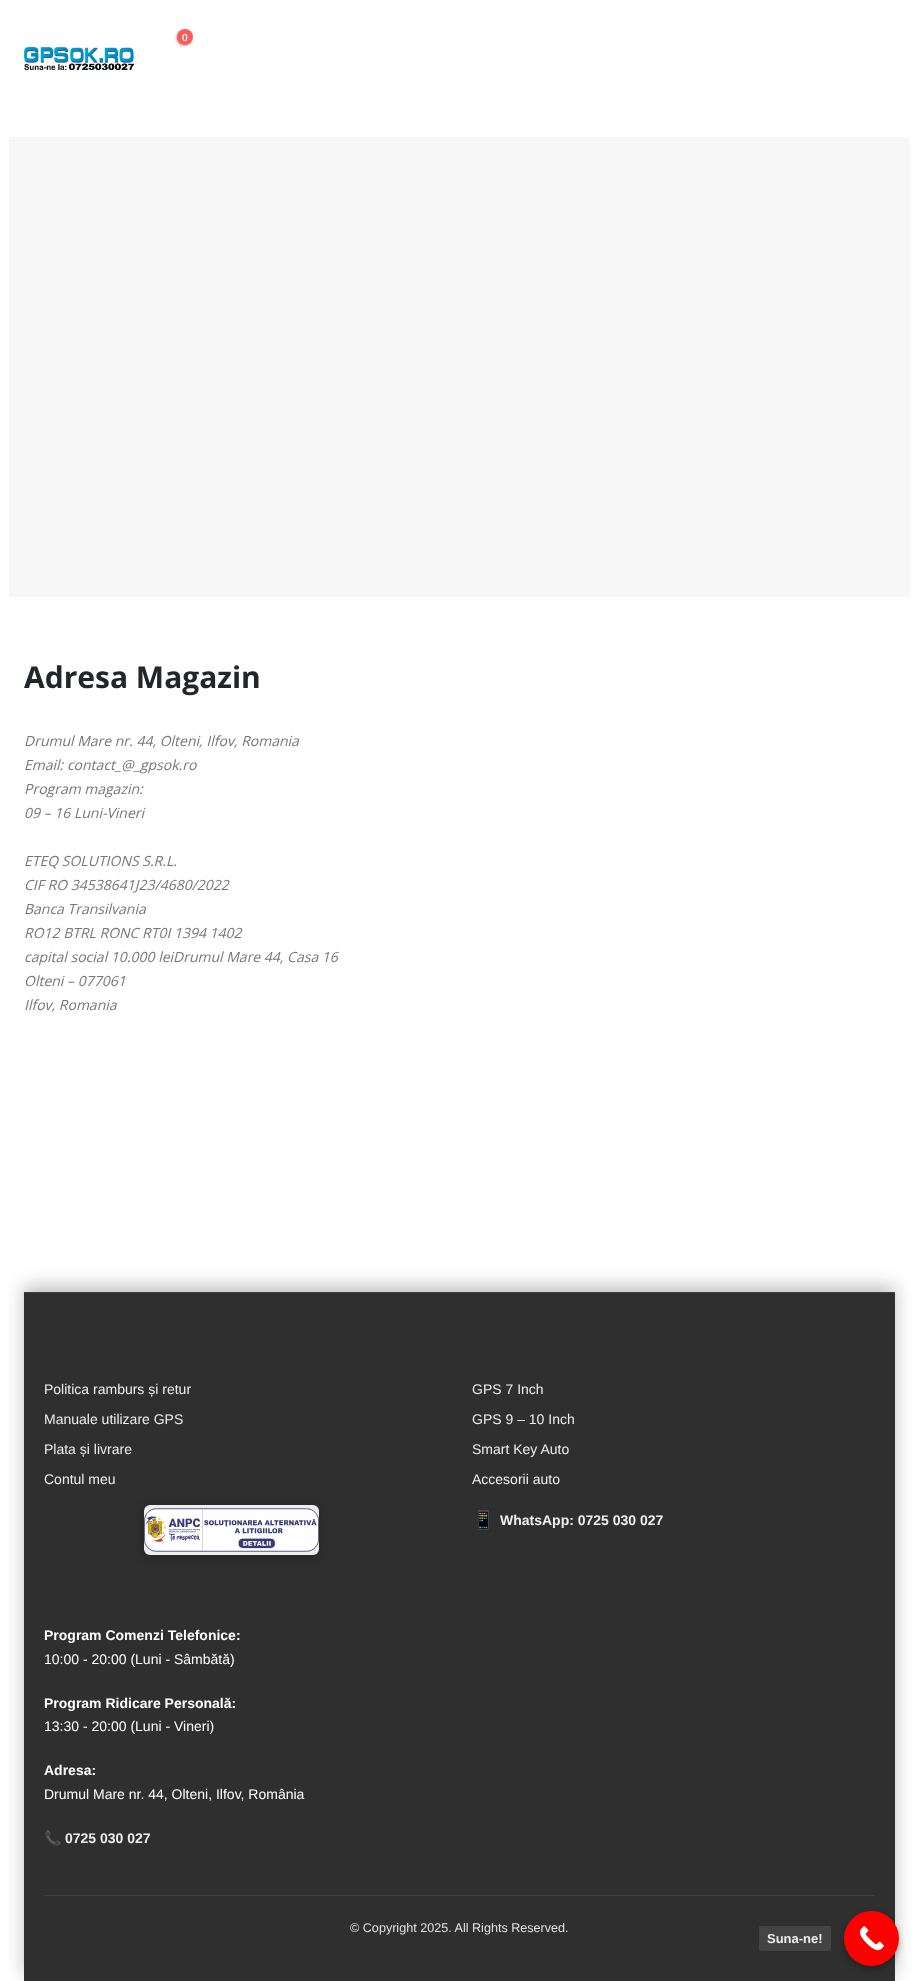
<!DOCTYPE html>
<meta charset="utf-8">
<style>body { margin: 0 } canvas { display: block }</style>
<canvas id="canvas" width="919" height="1981"></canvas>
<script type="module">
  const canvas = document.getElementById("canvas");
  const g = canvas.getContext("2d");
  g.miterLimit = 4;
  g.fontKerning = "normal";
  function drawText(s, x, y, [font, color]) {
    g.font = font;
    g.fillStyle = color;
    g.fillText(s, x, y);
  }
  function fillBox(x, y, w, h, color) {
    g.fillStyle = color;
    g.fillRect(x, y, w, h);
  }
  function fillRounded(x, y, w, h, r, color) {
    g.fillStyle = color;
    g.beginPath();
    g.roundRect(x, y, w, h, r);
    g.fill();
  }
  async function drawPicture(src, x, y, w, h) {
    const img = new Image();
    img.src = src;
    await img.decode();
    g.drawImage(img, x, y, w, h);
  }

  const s1 = ["600 10px Open Sans", "#FFFFFF"];
  const s2 = ["bold 30px Open Sans", "#222529"];
  const s3 = ["italic 14px Open Sans", "#777777"];
  const s4 = ["14px Liberation Sans", "#EEEEEE"];
  const s5 = ["bold 18px Noto Color Emoji", "#26C662"];
  const s6 = ["bold 14px Liberation Sans", "#EEEEEE"];
  const s7 = ["bold 14px Liberation Sans", "#FFFFFF"];
  const s8 = ["14px Liberation Sans", "#FFFFFF"];
  const s9 = ["bold 14px Noto Color Emoji", "#EEEEEE"];
  const s10 = ["12.6px Liberation Sans", "#E0E0E0"];
  const s11 = ["bold 13px Liberation Sans", "#EEEEEE"];

  fillBox(0, 0, 919, 1981, "#FFFFFF");
  g.fillStyle = "rgba(0, 0, 0, 0.3)";
  g.filter = "blur(1px)";
  g.beginPath();
  g.roundRect(176, 30, 16, 16, 8);
  g.fill();
  g.filter = "none";
  g.fillStyle = "#FF5B5B";
  g.beginPath();
  g.arc(185, 37, 8, 0, Math.PI * 2);
  g.fill();
  drawText("0", 182, 41, s1);
  await drawPicture("pic1.png", 24, 47, 110, 23);
  fillBox(9, 137, 901, 460, "#F7F7F7");
  drawText("Adresa Magazin", 24, 688, s2);
  drawText("Drumul Mare nr. 44, Olteni, Ilfov, Romania", 24, 746, s3);
  drawText("Email: contact_@_gpsok.ro", 24, 770, s3);
  drawText("Program magazin:", 24, 794, s3);
  drawText("09 – 16 Luni-Vineri", 24, 818, s3);
  drawText("ETEQ SOLUTIONS S.R.L.", 24, 866, s3);
  drawText("CIF RO 34538641J23/4680/2022", 24, 890, s3);
  drawText("Banca Transilvania", 24, 914, s3);
  drawText("RO12 BTRL RONC RT0I 1394 1402", 24, 938, s3);
  drawText("capital social 10.000 leiDrumul Mare 44, Casa 16", 24, 962, s3);
  drawText("Olteni – 077061", 24, 986, s3);
  drawText("Ilfov, Romania", 24, 1010, s3);
  g.fillStyle = "rgba(0, 0, 0, 0.25)";
  g.filter = "blur(9px)";
  g.beginPath();
  g.rect(24, 1286, 871, 689);
  g.fill();
  g.filter = "none";
  fillBox(24, 1293, 871, 688, "#2F2F2F");
  fillBox(24, 1292, 871, 1, "#404040");
  drawText("Politica ramburs și retur", 44, 1394, s4);
  drawText("Manuale utilizare GPS", 44, 1424, s4);
  drawText("Plata și livrare", 44, 1454, s4);
  drawText("Contul meu", 44, 1484, s4);
  g.fillStyle = "rgba(4, 4, 4, 0.25)";
  g.filter = "blur(5px)";
  g.beginPath();
  g.roundRect(144, 1507, 175, 50, 6);
  g.fill();
  g.filter = "none";
  fillRounded(144, 1505, 175, 50, 6, "#EEEEEE");
  await drawPicture("pic2.png", 144, 1508, 175, 44);
  drawText("GPS 7 Inch", 472, 1394, s4);
  drawText("GPS 9 – 10 Inch", 472, 1424, s4);
  drawText("Smart Key Auto", 472, 1454, s4);
  drawText("Accesorii auto", 472, 1484, s4);
  drawText("📱", 472, 1526, s5);
  drawText("WhatsApp: 0725 030 027", 500, 1525, s6);
  drawText("Program Comenzi Telefonice:", 44, 1640, s7);
  drawText("10:00 - 20:00 (Luni - Sâmbătă)", 44, 1664, s8);
  drawText("Program Ridicare Personală:", 44, 1708, s7);
  drawText("13:30 - 20:00 (Luni - Vineri)", 44, 1731, s8);
  drawText("Adresa:", 44, 1775, s7);
  drawText("Drumul Mare nr. 44, Olteni, Ilfov, România", 44, 1799, s8);
  drawText("📞", 44, 1843, s9);
  drawText("0725 030 027", 65, 1843, s6);
  fillBox(44, 1895, 831, 1, "#404040");
  drawText("© Copyright 2025. All Rights Reserved.", 350, 1932, s10);
  g.fillStyle = "rgba(0, 0, 0, 0.3)";
  g.filter = "blur(3px)";
  g.beginPath();
  g.roundRect(844, 1914, 55, 55, 27.5);
  g.fill();
  g.filter = "none";
  g.fillStyle = "#FF0000";
  g.beginPath();
  g.arc(871.5, 1938.5, 27.5, 0, Math.PI * 2);
  g.fill();
  await drawPicture("pic3.png", 859, 1926, 25, 25);
  fillRounded(759, 1926, 72, 25, 2, "#444444");
  drawText("Suna-ne!", 767, 1943, s11);
</script>
